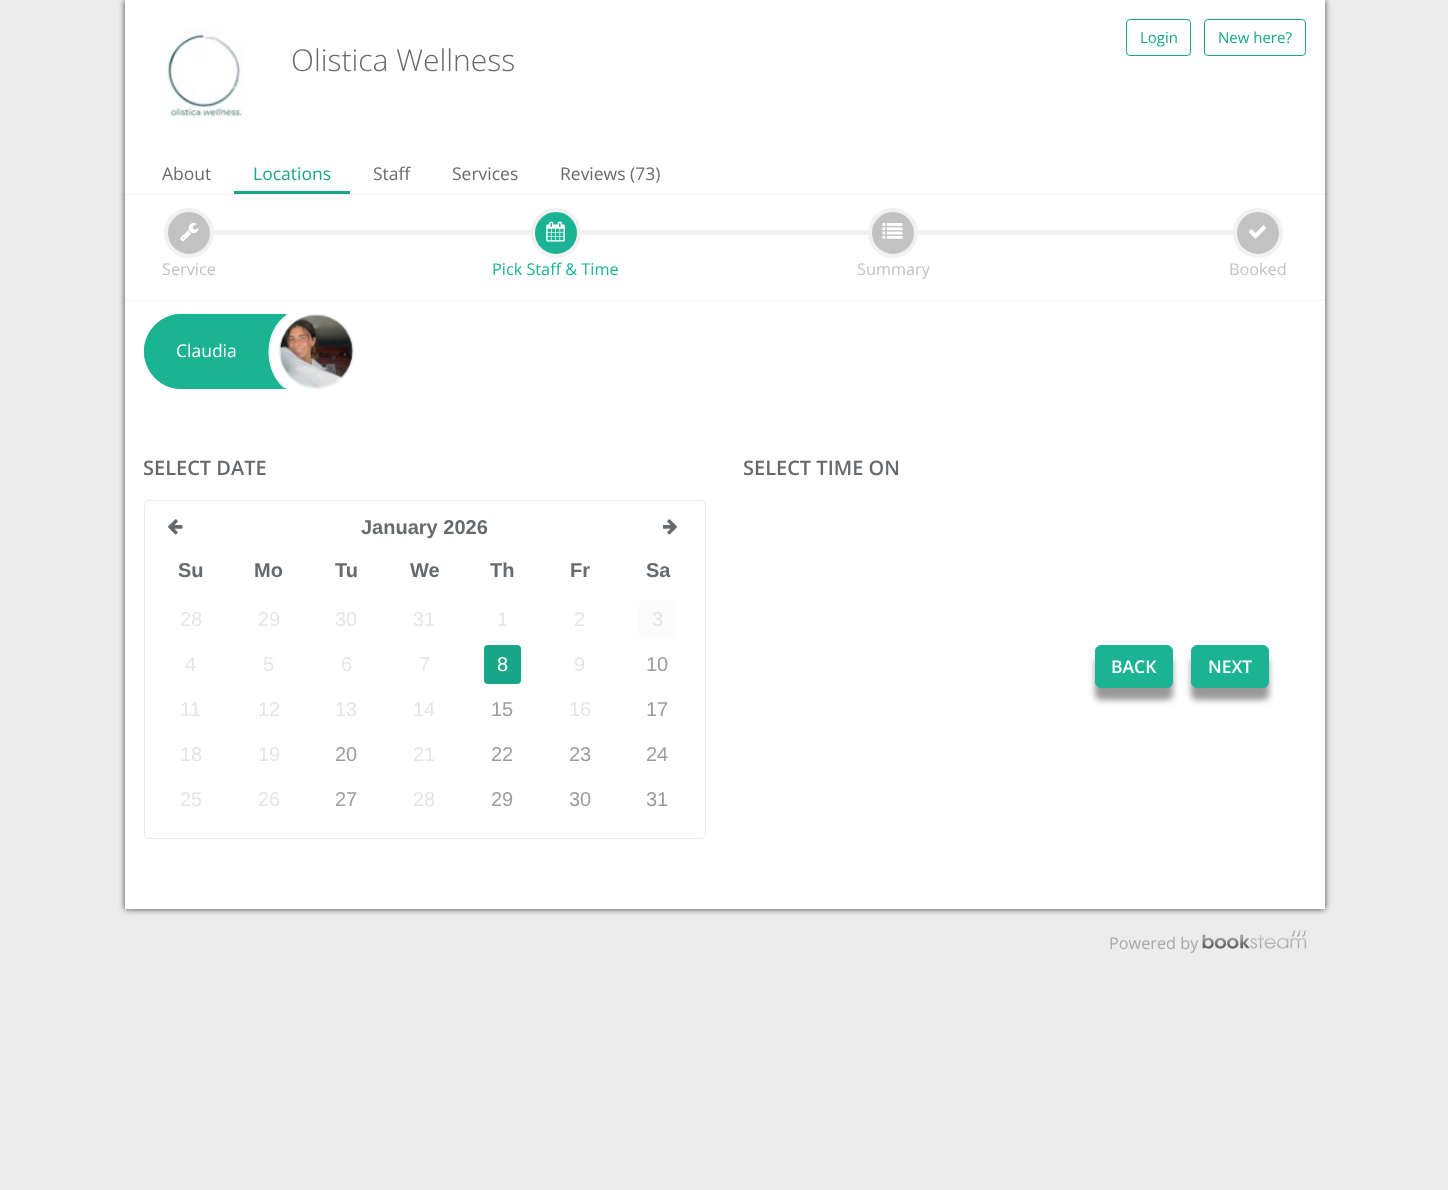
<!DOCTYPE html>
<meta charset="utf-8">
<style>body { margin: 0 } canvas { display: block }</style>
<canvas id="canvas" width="1448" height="1190"></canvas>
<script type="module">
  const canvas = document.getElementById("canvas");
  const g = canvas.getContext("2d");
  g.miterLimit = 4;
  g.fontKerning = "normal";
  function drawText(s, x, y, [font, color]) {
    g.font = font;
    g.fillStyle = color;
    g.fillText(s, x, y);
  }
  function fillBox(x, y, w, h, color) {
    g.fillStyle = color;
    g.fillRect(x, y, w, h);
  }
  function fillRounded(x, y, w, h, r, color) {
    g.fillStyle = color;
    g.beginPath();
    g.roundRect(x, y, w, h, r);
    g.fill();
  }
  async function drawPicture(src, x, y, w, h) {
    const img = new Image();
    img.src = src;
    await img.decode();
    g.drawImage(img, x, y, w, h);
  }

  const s1 = ["15px Open Sans", "#18A689"];
  const s2 = ["300 30px Open Sans", "#676A6C"];
  const s3 = ["17.5px Open Sans", "#676A6C"];
  const s4 = ["17.5px Open Sans", "#18A689"];
  const s5 = ["16.25px Open Sans", "#C2C2C2"];
  const s6 = ["16.25px Open Sans", "#1AB394"];
  const s7 = ["17.5px Open Sans", "#FFFFFF"];
  const s8 = ["600 20px Open Sans", "#676A6C"];
  const s9 = ["bold 20px Liberation Sans", "#676A6C"];
  const s10 = ["20px Liberation Sans", "#E5E5E6"];
  const s11 = ["20px Liberation Sans", "#FFFFFF"];
  const s12 = ["20px Liberation Sans", "#9A9D9F"];
  const s13 = ["600 17.5px Open Sans", "#FFFFFF"];
  const s14 = ["16.25px Open Sans", "#A9A9A9"];

  fillBox(0, 0, 1448, 1190, "#ECECEC");
  g.fillStyle = "rgba(0, 0, 0, 0.75)";
  g.filter = "blur(3px)";
  g.beginPath();
  g.rect(125, 0, 1200, 909);
  g.fill();
  g.filter = "none";
  fillBox(125, 0, 1200, 909, "#FFFFFF");
  g.beginPath();
  g.roundRect(1126.5, 19.5, 64, 36, 3.5);
  g.strokeStyle = "#18A689";
  g.stroke();
  drawText("Login", 1140, 43, s1);
  g.beginPath();
  g.roundRect(1204.5, 19.5, 101, 36, 3.5);
  g.stroke();
  drawText("New here?", 1218, 43, s1);
  await drawPicture("pic1.png", 164, 29, 80, 90);
  drawText("Olistica Wellness", 291, 71, s2);
  fillBox(125, 194, 1200, 1, "#F3F3F4");
  drawText("About", 162, 180, s3);
  fillBox(234, 191, 116, 3, "#18A689");
  drawText("Locations", 253, 180, s4);
  drawText("Staff", 373, 180, s3);
  drawText("Services", 452, 180, s3);
  drawText("Reviews (73)", 560, 180, s3);
  fillBox(125, 300, 1200, 1, "#F3F3F4");
  fillBox(213, 230, 1021, 5, "#F1F1F1");
  g.fillStyle = "#C2C2C2";
  g.beginPath();
  g.arc(189, 233, 23, 0, Math.PI * 2);
  g.fill();
  g.strokeStyle = "#F1F1F1";
  g.lineWidth = 4;
  g.stroke();
  await drawPicture("pic2.png", 180, 223, 19, 19);
  drawText("Service", 162, 275, s5);
  g.fillStyle = "#1AB394";
  g.beginPath();
  g.arc(556, 233, 23, 0, Math.PI * 2);
  g.fill();
  g.stroke();
  await drawPicture("pic3.png", 546, 221, 19, 21);
  drawText("Pick Staff & Time", 492, 275, s6);
  g.fillStyle = "#C2C2C2";
  g.beginPath();
  g.arc(893, 233, 23, 0, Math.PI * 2);
  g.fill();
  g.stroke();
  await drawPicture("pic4.png", 882, 223, 21, 16);
  drawText("Summary", 857, 275, s5);
  g.beginPath();
  g.arc(1258, 233, 23, 0, Math.PI * 2);
  g.fill();
  g.stroke();
  await drawPicture("pic5.png", 1249, 225, 17, 14);
  drawText("Booked", 1229, 275, s5);
  g.fillStyle = "#1AB394";
  g.beginPath();
  g.roundRect(144, 314, 142, 75, [37.5, 0, 0, 37.5]);
  g.fill();
  g.beginPath();
  g.moveTo(181, 314);
  g.lineTo(286, 314);
  g.lineTo(286, 389);
  g.lineTo(181, 389);
  g.bezierCurveTo(161, 389, 144, 372, 144, 351);
  g.bezierCurveTo(144, 331, 161, 314, 181, 314);
  g.closePath();
  g.moveTo(181, 315);
  g.lineTo(286, 315);
  g.lineTo(286, 388);
  g.lineTo(181, 388);
  g.bezierCurveTo(161, 388, 145, 371, 145, 351);
  g.bezierCurveTo(145, 331, 161, 315, 181, 315);
  g.closePath();
  g.fill("evenodd");
  drawText("Claudia", 176, 357, s7);
  g.beginPath();
  g.moveTo(286, 315);
  g.lineTo(286, 388);
  g.lineTo(284, 388);
  g.bezierCurveTo(263, 370, 263, 332, 286, 315);
  g.closePath();
  g.fill();
  g.save();
  g.beginPath();
  g.roundRect(145, 315, 141, 73, [36.5, 0, 0, 36.5]);
  g.clip();
  g.beginPath();
  g.moveTo(306, 309.5);
  g.bezierCurveTo(326.5, 309.5, 343, 328.5, 343, 352.5);
  g.bezierCurveTo(343, 376.5, 326.5, 395.5, 306, 395.5);
  g.bezierCurveTo(286, 395.5, 269.5, 376.5, 269.5, 352.5);
  g.bezierCurveTo(269.5, 328.5, 286, 309.5, 306, 309.5);
  g.closePath();
  g.strokeStyle = "#E7EAEC";
  g.lineWidth = 1.2;
  g.stroke();
  g.restore();
  g.beginPath();
  g.arc(316.5, 351.5, 37, 0, Math.PI * 2);
  g.strokeStyle = "#E7EAEC";
  g.lineWidth = 1;
  g.stroke();
  await drawPicture("pic6.png", 279, 314, 74, 74);
  drawText("SELECT DATE", 143, 475, s8);
  g.beginPath();
  g.roundRect(144.5, 500.5, 561, 338, 4.5);
  g.stroke();
  await drawPicture("pic7.png", 168, 519, 15, 16);
  drawText("January 2026", 361, 534, s9);
  await drawPicture("pic8.png", 663, 519, 14, 16);
  drawText("Su", 178, 577, s9);
  drawText("Mo", 254, 577, s9);
  drawText("Tu", 335, 577, s9);
  drawText("We", 410, 577, s9);
  drawText("Th", 490, 577, s9);
  drawText("Fr", 570, 577, s9);
  drawText("Sa", 646, 577, s9);
  drawText("28", 180, 626, s10);
  drawText("29", 258, 626, s10);
  drawText("30", 335, 626, s10);
  drawText("31", 413, 626, s10);
  drawText("1", 497, 626, s10);
  drawText("2", 574, 626, s10);
  fillRounded(639, 600, 37, 39, 4, "#FBFBFB");
  drawText("3", 652, 626, s10);
  drawText("4", 185, 671, s10);
  drawText("5", 263, 671, s10);
  drawText("6", 341, 671, s10);
  drawText("7", 419, 671, s10);
  fillRounded(484, 645, 37, 39, 4, "#18A689");
  drawText("8", 497, 671, s11);
  drawText("9", 574, 671, s10);
  drawText("10", 646, 671, s12);
  drawText("11", 180, 716, s10);
  drawText("12", 258, 716, s10);
  drawText("13", 335, 716, s10);
  drawText("14", 413, 716, s10);
  drawText("15", 491, 716, s12);
  drawText("16", 569, 716, s10);
  drawText("17", 646, 716, s12);
  drawText("18", 180, 761, s10);
  drawText("19", 258, 761, s10);
  drawText("20", 335, 761, s12);
  drawText("21", 413, 761, s10);
  drawText("22", 491, 761, s12);
  drawText("23", 569, 761, s12);
  drawText("24", 646, 761, s12);
  drawText("25", 180, 806, s10);
  drawText("26", 258, 806, s10);
  drawText("27", 335, 806, s12);
  drawText("28", 413, 806, s10);
  drawText("29", 491, 806, s12);
  drawText("30", 569, 806, s12);
  drawText("31", 646, 806, s12);
  drawText("SELECT TIME ON", 743, 475, s8);
  g.fillStyle = "#999999";
  g.filter = "blur(3px)";
  g.beginPath();
  g.roundRect(1095, 658, 78, 42, 6);
  g.fill();
  g.filter = "none";
  g.fillStyle = "#1AB394";
  g.beginPath();
  g.roundRect(1095.5, 645.5, 77, 42, 5.5);
  g.fill();
  g.strokeStyle = "#1AB394";
  g.stroke();
  drawText("BACK", 1111, 673, s13);
  g.fillStyle = "#999999";
  g.filter = "blur(3px)";
  g.beginPath();
  g.roundRect(1191, 658, 78, 42, 6);
  g.fill();
  g.filter = "none";
  g.fillStyle = "#1AB394";
  g.beginPath();
  g.roundRect(1191.5, 645.5, 77, 42, 5.5);
  g.fill();
  g.stroke();
  drawText("NEXT", 1208, 673, s13);
  drawText("Powered by", 1109, 949, s14);
  await drawPicture("pic9.png", 1202, 930, 105, 19);
</script>
